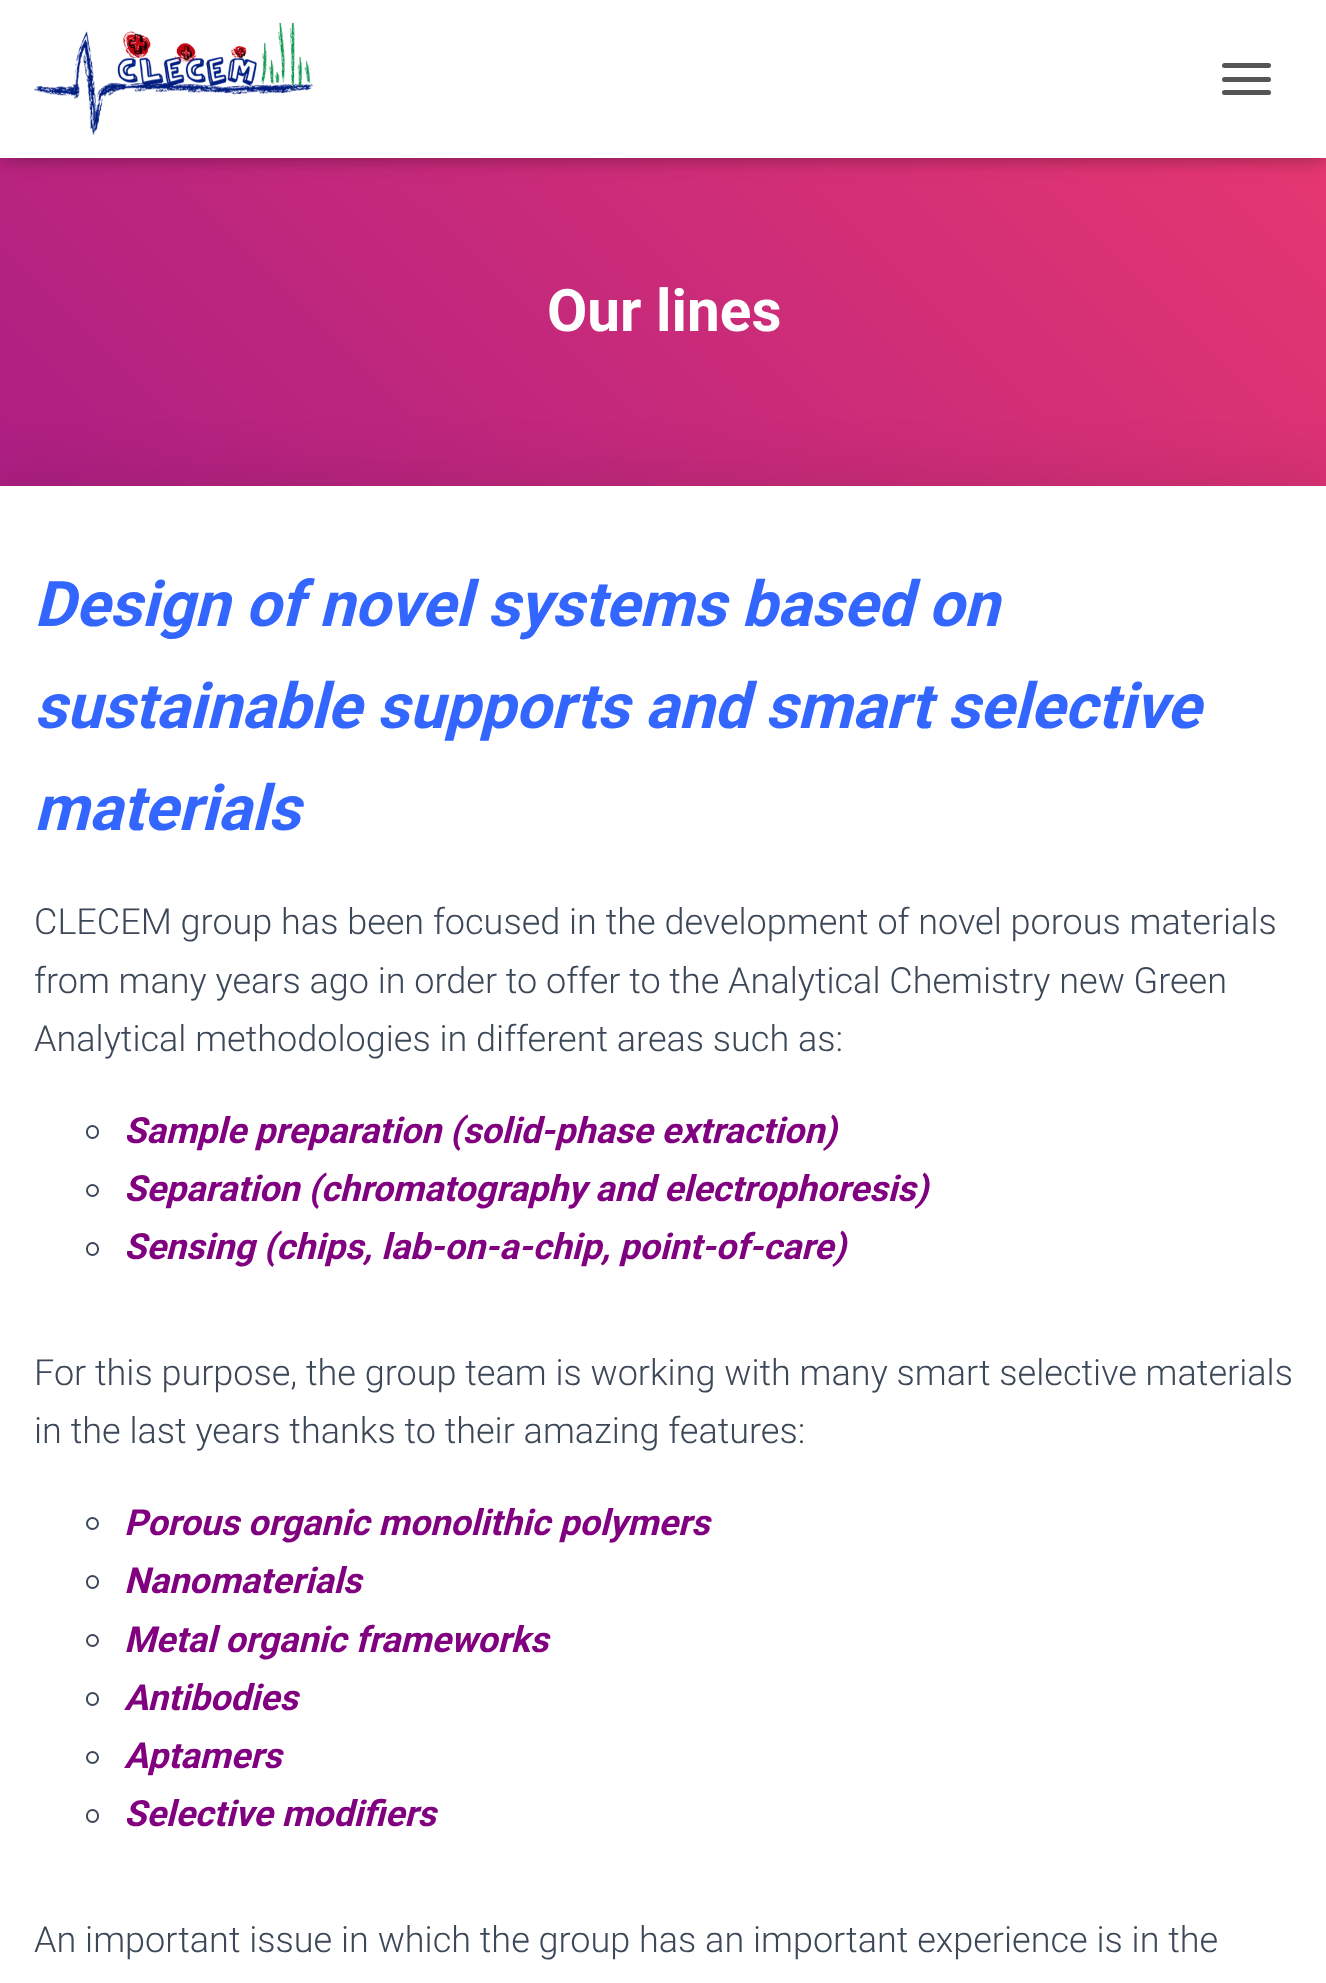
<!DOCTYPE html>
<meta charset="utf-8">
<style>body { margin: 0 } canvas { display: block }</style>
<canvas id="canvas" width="1326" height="1983"></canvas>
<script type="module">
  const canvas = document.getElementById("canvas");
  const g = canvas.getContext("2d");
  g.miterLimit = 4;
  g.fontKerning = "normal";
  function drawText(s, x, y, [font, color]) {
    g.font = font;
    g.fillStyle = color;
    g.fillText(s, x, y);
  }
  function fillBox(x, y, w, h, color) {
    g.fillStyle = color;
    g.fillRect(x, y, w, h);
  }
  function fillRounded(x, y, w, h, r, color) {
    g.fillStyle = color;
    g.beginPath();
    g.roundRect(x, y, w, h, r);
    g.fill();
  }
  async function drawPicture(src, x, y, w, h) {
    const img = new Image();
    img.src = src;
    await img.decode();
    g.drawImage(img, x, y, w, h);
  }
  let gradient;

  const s1 = ["bold 58.5px Roboto", "#FFFFFF"];
  const s2 = ["italic bold 63px Roboto", "#3366FF"];
  const s3 = ["300 36px Roboto", "#3C4858"];
  const s4 = ["italic bold 36px Roboto", "#800080"];

  fillBox(0, 0, 1326, 1983, "#FFFFFF");
  gradient = g.createLinearGradient(177, 798, 1151, -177);
  gradient.addColorStop(0, "#A81D84");
  gradient.addColorStop(1, "#EA396F");
  g.fillStyle = gradient;
  g.fillRect(0, 158, 1326, 328);
  g.fillStyle = "rgba(0, 0, 0, 0.1)";
  g.filter = "blur(5.5px)";
  g.beginPath();
  g.rect(5, 14, 1318, 148);
  g.fill();
  g.filter = "none";
  g.fillStyle = "rgba(0, 0, 0, 0.12)";
  g.filter = "blur(11px)";
  g.beginPath();
  g.rect(0, 2, 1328, 158);
  g.fill();
  g.filter = "none";
  g.fillStyle = "rgba(0, 0, 0, 0.42)";
  g.filter = "blur(11px)";
  g.beginPath();
  g.rect(14, 16, 1300, 130);
  g.fill();
  g.filter = "none";
  fillBox(0, 0, 1326, 158, "#FFFFFF");
  await drawPicture("pic1.png", 34, 23, 279, 112);
  fillRounded(1222, 63, 49, 5, 2.5, "#555555");
  fillRounded(1222, 77, 49, 5, 2.5, "#555555");
  fillRounded(1222, 90, 49, 5, 2.5, "#555555");
  drawText("Our lines", 547, 331, s1);
  g.fillStyle = "rgba(0, 0, 0, 0.12)";
  g.filter = "blur(34px)";
  g.beginPath();
  g.rect(-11, 488, 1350, 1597);
  g.fill();
  g.filter = "none";
  fillBox(0, 486, 1326, 1497, "#FFFFFF");
  drawText("Design of novel systems based on", 34, 626, s2);
  drawText("sustainable supports and smart selective", 34, 728, s2);
  drawText("materials", 34, 830, s2);
  drawText("CLECEM group has been focused in the development of novel porous materials", 34, 934, s3);
  drawText("from many years ago in order to offer to the Analytical Chemistry new Green", 34, 993, s3);
  drawText("Analytical methodologies in different areas such as:", 34, 1051, s3);
  g.beginPath();
  g.roundRect(87, 1126, 11, 12, 5.5);
  g.strokeStyle = "#3C4858";
  g.lineWidth = 2;
  g.stroke();
  drawText("Sample preparation (solid-phase extraction)", 124, 1143, s4);
  g.beginPath();
  g.arc(92.5, 1190.5, 5.5, 0, Math.PI * 2);
  g.stroke();
  drawText("Separation (chromatography and electrophoresis)", 124, 1201, s4);
  g.beginPath();
  g.roundRect(87, 1243, 11, 12, 5.5);
  g.stroke();
  drawText("Sensing (chips, lab-on-a-chip, point-of-care)", 124, 1259, s4);
  drawText("For this purpose, the group team is working with many smart selective materials", 34, 1385, s3);
  drawText("in the last years thanks to their amazing features:", 34, 1443, s3);
  g.beginPath();
  g.arc(92.5, 1523.5, 5.5, 0, Math.PI * 2);
  g.stroke();
  drawText("Porous organic monolithic polymers", 124, 1535, s4);
  g.beginPath();
  g.roundRect(87, 1576, 11, 12, 5.5);
  g.stroke();
  drawText("Nanomaterials", 124, 1593, s4);
  g.beginPath();
  g.arc(92.5, 1640.5, 5.5, 0, Math.PI * 2);
  g.stroke();
  drawText("Metal organic frameworks", 124, 1652, s4);
  g.beginPath();
  g.roundRect(87, 1693, 11, 12, 5.5);
  g.stroke();
  drawText("Antibodies", 124, 1710, s4);
  g.beginPath();
  g.arc(92.5, 1757.5, 5.5, 0, Math.PI * 2);
  g.stroke();
  drawText("Aptamers", 124, 1768, s4);
  g.beginPath();
  g.roundRect(87, 1810, 11, 12, 5.5);
  g.stroke();
  drawText("Selective modifiers", 124, 1826, s4);
  drawText("An important issue in which the group has an important experience is in the", 34, 1952, s3);
</script>
